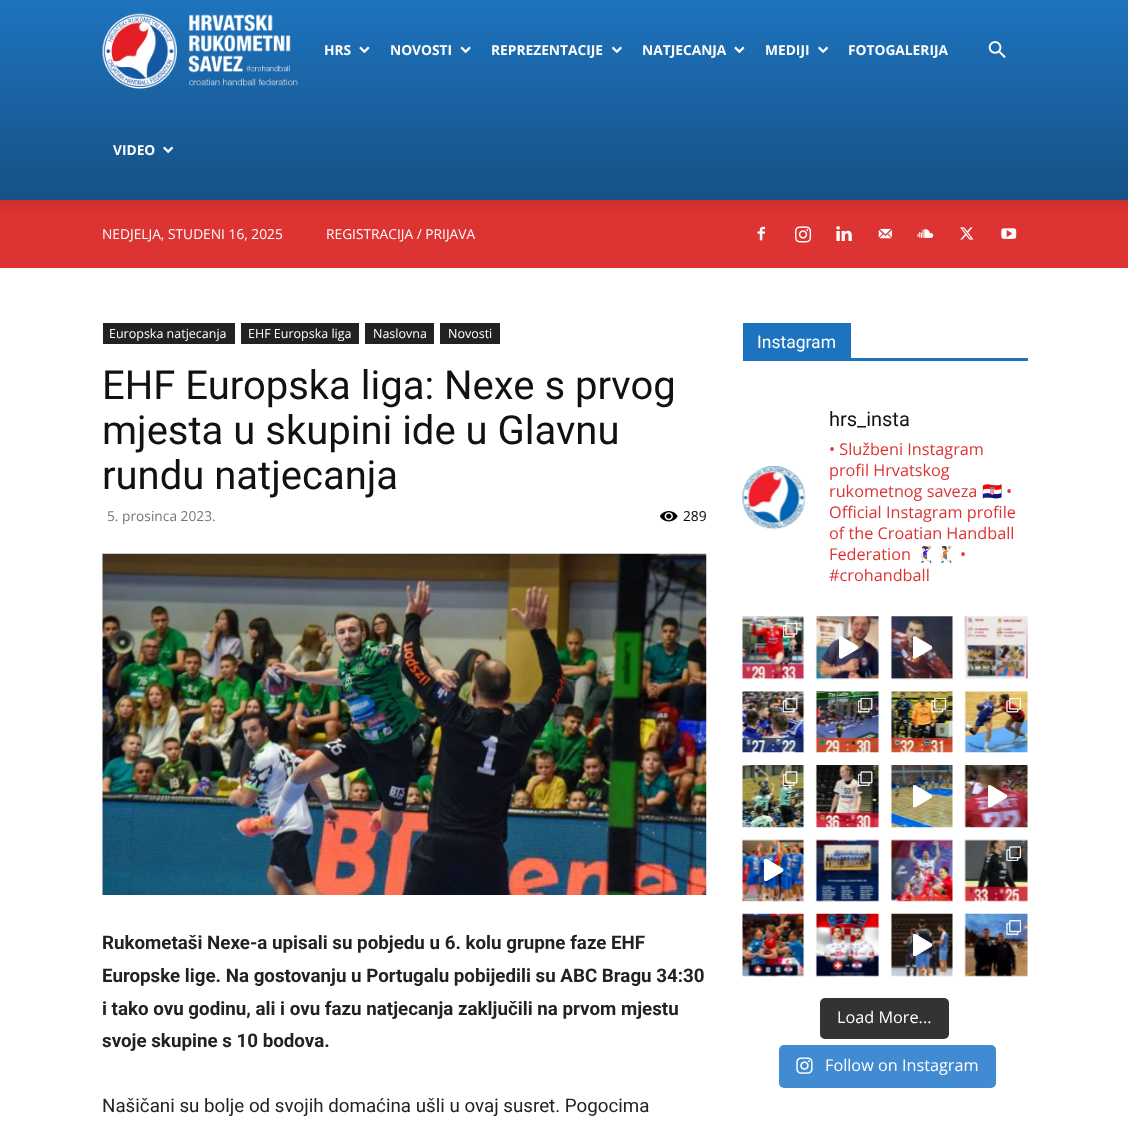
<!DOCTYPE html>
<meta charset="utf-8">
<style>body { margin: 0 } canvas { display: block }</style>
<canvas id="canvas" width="1128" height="1136"></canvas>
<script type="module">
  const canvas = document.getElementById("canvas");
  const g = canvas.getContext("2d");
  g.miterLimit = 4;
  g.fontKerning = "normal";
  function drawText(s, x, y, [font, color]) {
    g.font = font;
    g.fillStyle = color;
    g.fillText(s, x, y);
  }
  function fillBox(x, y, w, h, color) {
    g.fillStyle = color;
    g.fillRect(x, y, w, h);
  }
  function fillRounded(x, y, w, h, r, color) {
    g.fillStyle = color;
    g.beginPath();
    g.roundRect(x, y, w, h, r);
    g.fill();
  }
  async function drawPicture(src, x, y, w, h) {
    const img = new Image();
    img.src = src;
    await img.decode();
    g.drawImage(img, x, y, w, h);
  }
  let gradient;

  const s1 = ["bold 13.75px Open Sans", "#FFFFFF"];
  const s2 = ["13.75px Open Sans", "#FFFFFF"];
  const s3 = ["12.5px Open Sans", "#FFFFFF"];
  const s4 = ["40px Roboto", "#111111"];
  const s5 = ["13.75px Open Sans", "#767676"];
  const s6 = ["13.75px Open Sans", "#000000"];
  const s7 = ["bold 18.75px Roboto", "#222222"];
  const s8 = ["18.75px Roboto", "#222222"];
  const s9 = ["17.5px Roboto", "#FFFFFF"];
  const s10 = ["20px Roboto", "#111111"];
  const s11 = ["16.25px Open Sans", "#DD3333"];
  const s12 = ["16.25px Noto Color Emoji", "#DD3333"];
  const s13 = ["16.25px Open Sans", "#FFFFFF"];

  fillBox(0, 0, 1128, 1136, "#FFFFFF");
  gradient = g.createLinearGradient(564, 0, 564, 200);
  gradient.addColorStop(0, "#1E73BE");
  gradient.addColorStop(1, "#155185");
  g.fillStyle = gradient;
  g.fillRect(0, 0, 1128, 200);
  await drawPicture("pic1.png", 102, 13, 196, 76);
  drawText("HRS", 324, 55, s1);
  await drawPicture("pic2.png", 359, 46, 11, 8);
  drawText("NOVOSTI", 390, 55, s1);
  await drawPicture("pic3.png", 460, 46, 11, 8);
  drawText("REPREZENTACIJE", 491, 55, s1);
  await drawPicture("pic4.png", 611, 46, 11, 8);
  drawText("NATJECANJA", 642, 55, s1);
  await drawPicture("pic2.png", 734, 46, 11, 8);
  drawText("MEDIJI", 765, 55, s1);
  await drawPicture("pic5.png", 818, 46, 11, 8);
  drawText("FOTOGALERIJA", 848, 55, s1);
  drawText("VIDEO", 113, 155, s1);
  await drawPicture("pic6.png", 163, 146, 11, 8);
  await drawPicture("pic7.png", 988, 41, 18, 17);
  fillBox(0, 200, 1128, 68, "#DD3333");
  await drawPicture("pic8.png", 0, 200, 1128, 11);
  drawText("NEDJELJA, STUDENI 16, 2025", 102, 239, s2);
  drawText("REGISTRACIJA / PRIJAVA", 326, 239, s2);
  await drawPicture("pic9.png", 757, 226, 8, 15);
  await drawPicture("pic10.png", 795, 226, 17, 17);
  await drawPicture("pic11.png", 836, 226, 16, 15);
  await drawPicture("pic12.png", 878, 228, 15, 11);
  await drawPicture("pic13.png", 917, 229, 17, 9);
  await drawPicture("pic14.png", 960, 227, 14, 13);
  await drawPicture("pic15.png", 1001, 228, 16, 11);
  fillBox(103, 323, 132, 21, "#222222");
  drawText("Europska natjecanja", 109, 338, s3);
  fillBox(241, 323, 118, 21, "#222222");
  drawText("EHF Europska liga", 248, 338, s3);
  fillBox(365, 323, 69, 21, "#222222");
  drawText("Naslovna", 373, 338, s3);
  fillBox(440, 323, 60, 21, "#222222");
  drawText("Novosti", 448, 338, s3);
  drawText("EHF Europska liga: Nexe s prvog", 102, 399, s4);
  drawText("mjesta u skupini ide u Glavnu", 102, 444, s4);
  drawText("rundu natjecanja", 102, 489, s4);
  drawText("5. prosinca 2023.", 107, 521, s5);
  await drawPicture("pic16.png", 660, 511, 18, 11);
  drawText("289", 683, 521, s6);
  await drawPicture("pic17.png", 102, 553, 605, 342);
  drawText("Rukometaši Nexe-a upisali su pobjedu u 6. kolu grupne faze EHF", 102, 949, s7);
  drawText("Europske lige. Na gostovanju u Portugalu pobijedili su ABC Bragu 34:30", 102, 982, s7);
  drawText("i tako ovu godinu, ali i ovu fazu natjecanja zaključili na prvom mjestu", 102, 1015, s7);
  drawText("svoje skupine s 10 bodova.", 102, 1047, s7);
  drawText("Našičani su bolje od svojih domaćina ušli u ovaj susret. Pogocima", 102, 1112, s8);
  fillBox(743, 358, 285, 3, "#1E73BE");
  fillBox(743, 323, 108, 35, "#1E73BE");
  drawText("Instagram", 757, 348, s9);
  await drawPicture("pic18.png", 742, 466, 64, 64);
  drawText("hrs_insta", 829, 426, s10);
  drawText("• Službeni Instagram", 829, 455, s11);
  drawText("profil Hrvatskog", 829, 476, s11);
  drawText("rukometnog saveza", 829, 497, s11);
  drawText("🇭🇷", 982, 497, s12);
  drawText("•", 1006, 497, s11);
  drawText("Official Instagram profile", 829, 518, s11);
  drawText("of the Croatian Handball", 829, 539, s11);
  drawText("Federation", 829, 560, s11);
  drawText("🤾🏻‍♀️🤾🏻", 915, 560, s12);
  drawText("•", 960, 560, s11);
  drawText("#crohandball", 829, 581, s11);
  await drawPicture("pic19.png", 742, 616, 63, 64);
  await drawPicture("pic20.png", 783, 623, 15, 15);
  await drawPicture("pic21.png", 815, 616, 65, 64);
  await drawPicture("pic22.png", 839, 636, 20, 23);
  await drawPicture("pic23.png", 890, 616, 63, 64);
  await drawPicture("pic24.png", 913, 636, 20, 23);
  await drawPicture("pic25.png", 964, 616, 64, 64);
  await drawPicture("pic26.png", 742, 691, 63, 62);
  await drawPicture("pic27.png", 783, 698, 15, 15);
  await drawPicture("pic28.png", 815, 691, 65, 62);
  await drawPicture("pic29.png", 858, 698, 15, 15);
  await drawPicture("pic30.png", 890, 691, 63, 62);
  await drawPicture("pic31.png", 931, 698, 15, 15);
  await drawPicture("pic32.png", 964, 691, 64, 62);
  await drawPicture("pic33.png", 1006, 698, 15, 15);
  await drawPicture("pic34.png", 742, 765, 63, 63);
  await drawPicture("pic35.png", 783, 771, 15, 15);
  await drawPicture("pic36.png", 815, 765, 65, 63);
  await drawPicture("pic37.png", 858, 771, 15, 15);
  await drawPicture("pic38.png", 890, 765, 63, 63);
  await drawPicture("pic39.png", 913, 785, 20, 23);
  await drawPicture("pic40.png", 964, 765, 64, 63);
  await drawPicture("pic41.png", 988, 785, 20, 23);
  await drawPicture("pic42.png", 742, 839, 63, 63);
  await drawPicture("pic43.png", 764, 859, 20, 22);
  await drawPicture("pic44.png", 815, 839, 65, 63);
  await drawPicture("pic45.png", 890, 839, 63, 63);
  await drawPicture("pic46.png", 964, 839, 64, 63);
  await drawPicture("pic47.png", 1006, 846, 15, 15);
  await drawPicture("pic48.png", 742, 913, 63, 64);
  await drawPicture("pic49.png", 815, 913, 65, 64);
  await drawPicture("pic50.png", 890, 913, 63, 64);
  await drawPicture("pic51.png", 913, 934, 20, 22);
  await drawPicture("pic52.png", 964, 913, 64, 64);
  await drawPicture("pic53.png", 1006, 920, 15, 15);
  fillRounded(820, 998, 129, 41, 5, "#333333");
  drawText("Load More...", 837, 1023, s13);
  fillRounded(779, 1045, 217, 43, 5, "#408BD1");
  await drawPicture("pic54.png", 796, 1057, 17, 17);
  drawText("Follow on Instagram", 825, 1071, s13);
</script>
